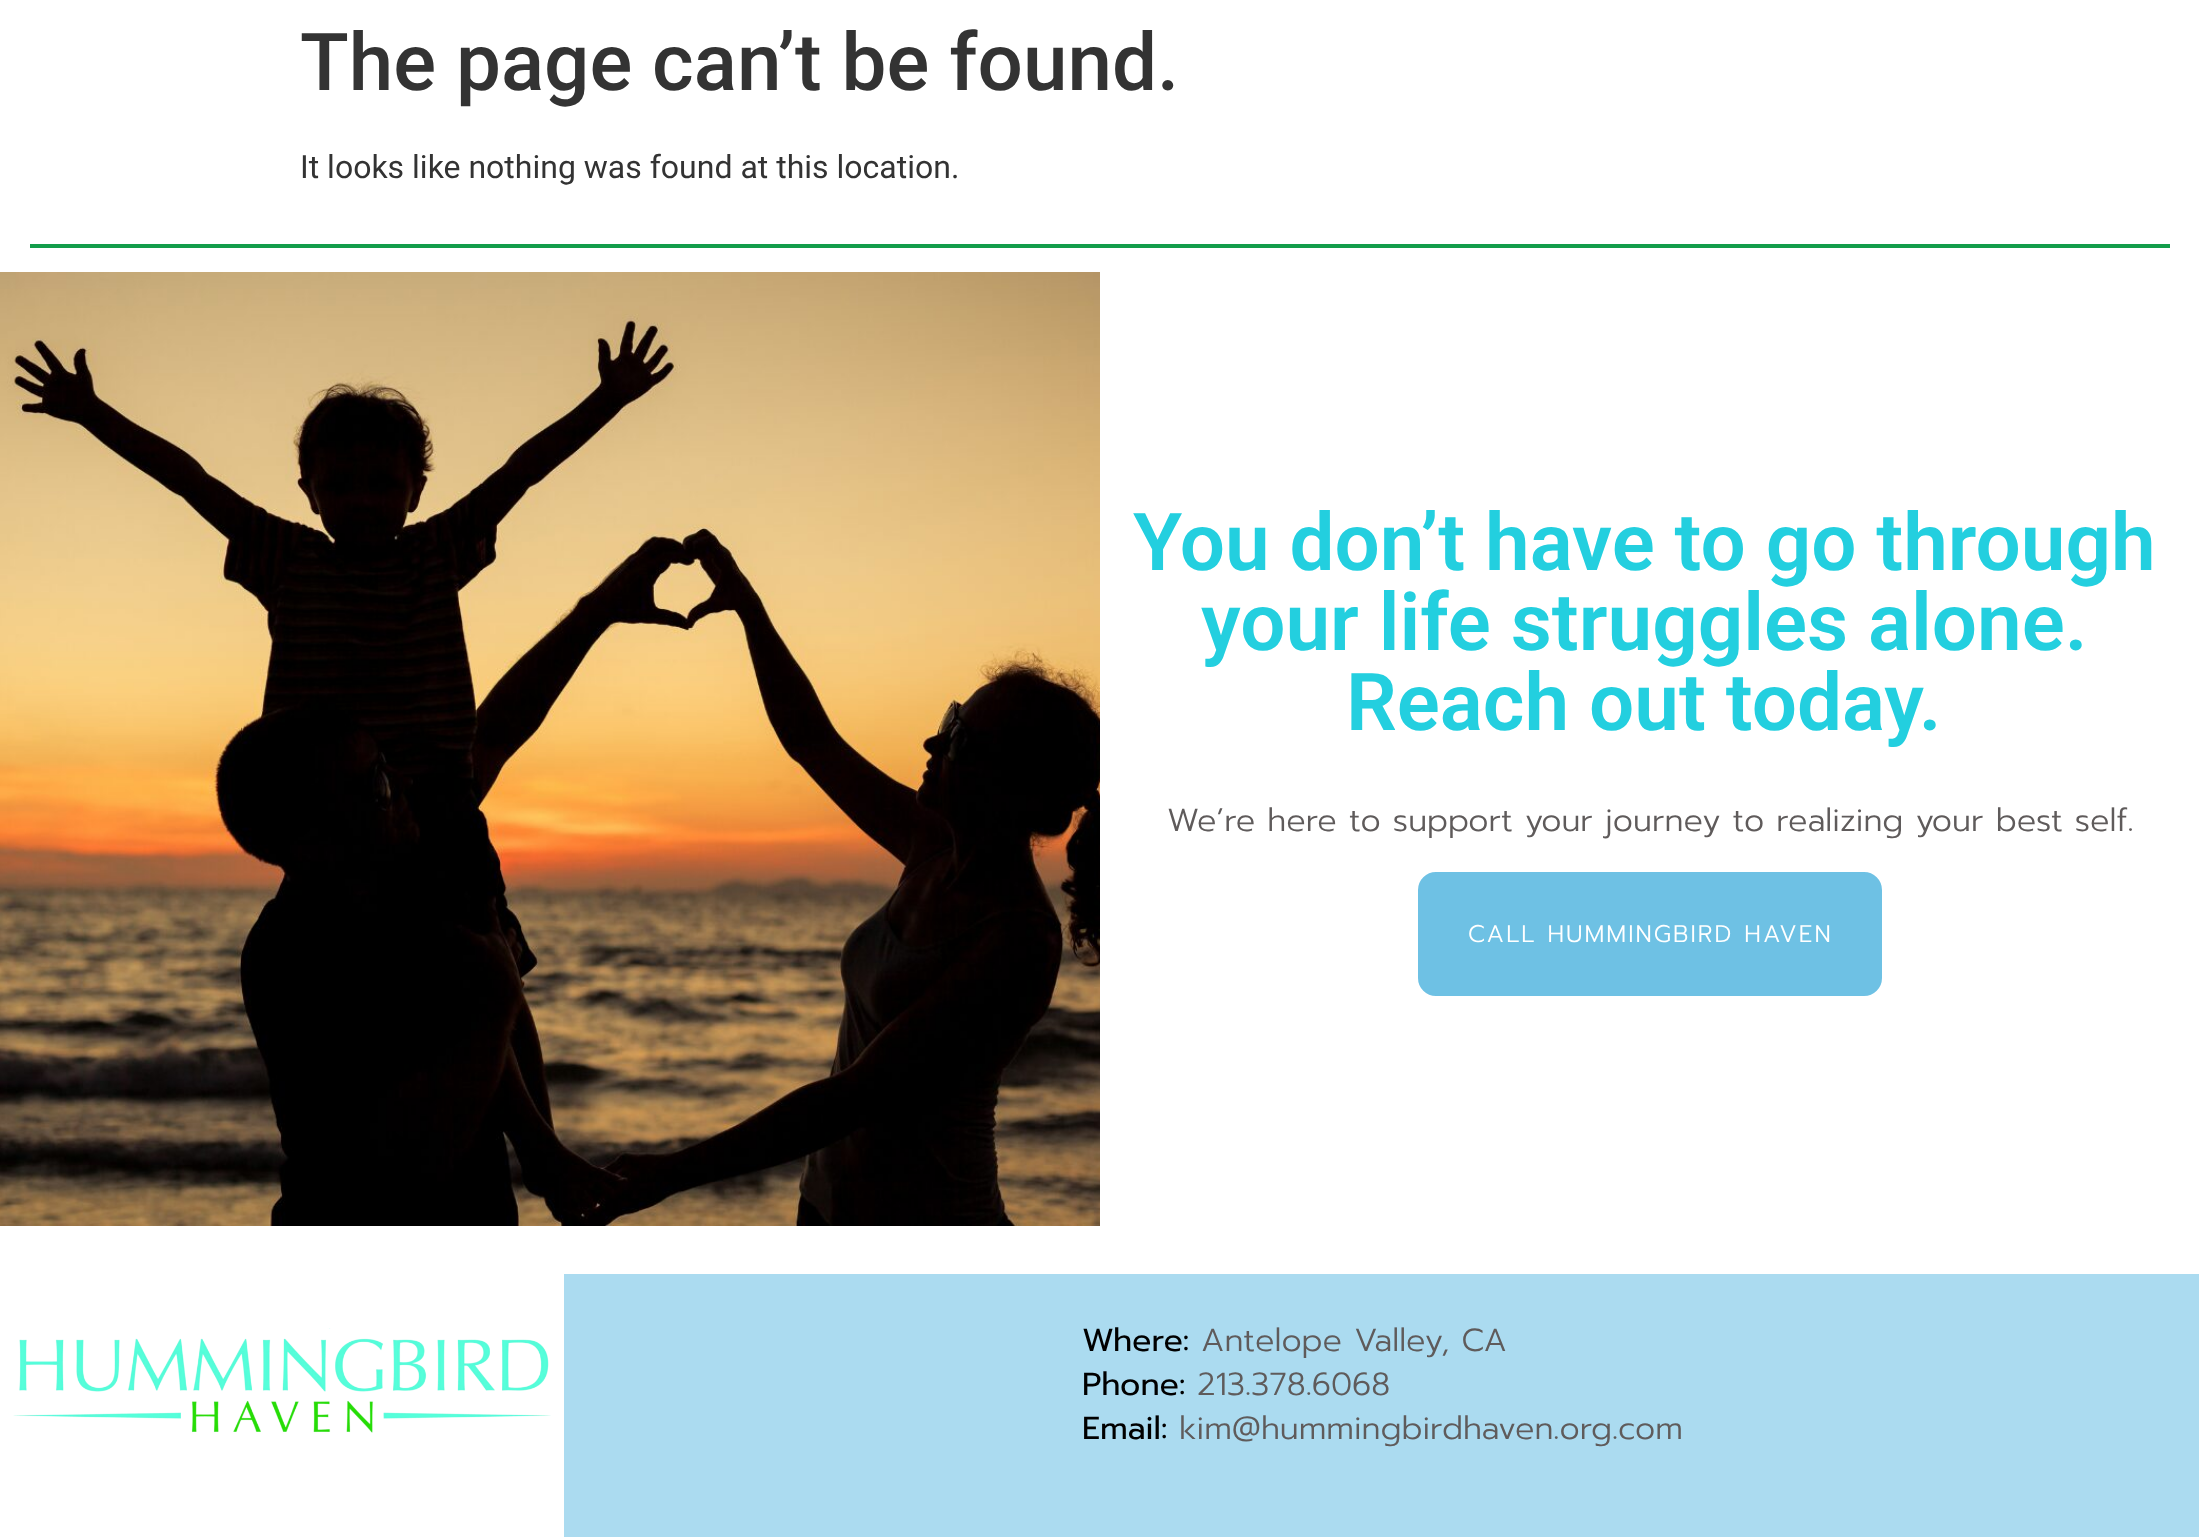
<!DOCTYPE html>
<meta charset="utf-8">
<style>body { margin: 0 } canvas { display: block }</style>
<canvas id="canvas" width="2199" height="1537"></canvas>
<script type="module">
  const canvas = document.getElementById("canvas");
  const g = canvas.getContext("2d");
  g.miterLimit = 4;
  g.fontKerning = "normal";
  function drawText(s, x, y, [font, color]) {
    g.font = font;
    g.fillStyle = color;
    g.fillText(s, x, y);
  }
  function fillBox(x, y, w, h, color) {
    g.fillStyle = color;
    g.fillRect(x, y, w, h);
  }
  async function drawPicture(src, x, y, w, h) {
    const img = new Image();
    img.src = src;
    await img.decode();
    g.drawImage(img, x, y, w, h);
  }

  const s1 = ["500 80px Roboto", "#333333"];
  const s2 = ["32px Roboto", "#333333"];
  const s3 = ["600 80px Roboto", "#23CFDF"];
  const s4 = ["300 32px Prompt", "#5F5B5B"];
  const s5 = ["300 24px Prompt", "#FFFFFF"];
  const s6 = ["32px Prompt", "#000000"];

  fillBox(0, 0, 2199, 1537, "#FFFFFF");
  drawText("The page can’t be found.", 300, 90, s1);
  drawText("It looks like nothing was found at this location.", 300, 178, s2);
  fillBox(30, 244, 2140, 4, "#139D4B");
  await drawPicture("pic1.png", 0, 272, 1100, 954);
  drawText("You don’t have to go through", 1133, 570, s3);
  drawText("your life struggles alone.", 1201, 650, s3);
  drawText("Reach out today.", 1346, 730, s3);
  drawText("We’re here to support your journey to realizing your best self.", 1167, 831, s4);
  g.fillStyle = "#6EC1E4";
  g.beginPath();
  g.roundRect(1419, 873, 462, 122, 17);
  g.fill();
  g.strokeStyle = "#6EC1E4";
  g.lineWidth = 2;
  g.stroke();
  g.letterSpacing = "2px";
  drawText("CALL HUMMINGBIRD HAVEN", 1468, 942, s5);
  await drawPicture("pic2.png", 13, 1328, 538, 105);
  fillBox(564, 1274, 1635, 263, "#ABDBF0");
  g.letterSpacing = "0px";
  drawText("Where:", 1082, 1351, s6);
  drawText("Antelope Valley, CA", 1201, 1351, s4);
  drawText("Phone:", 1082, 1395, s6);
  drawText("213.378.6068", 1197, 1395, s4);
  drawText("Email:", 1082, 1439, s6);
  drawText("kim@hummingbirdhaven.org.com", 1179, 1439, s4);
</script>
